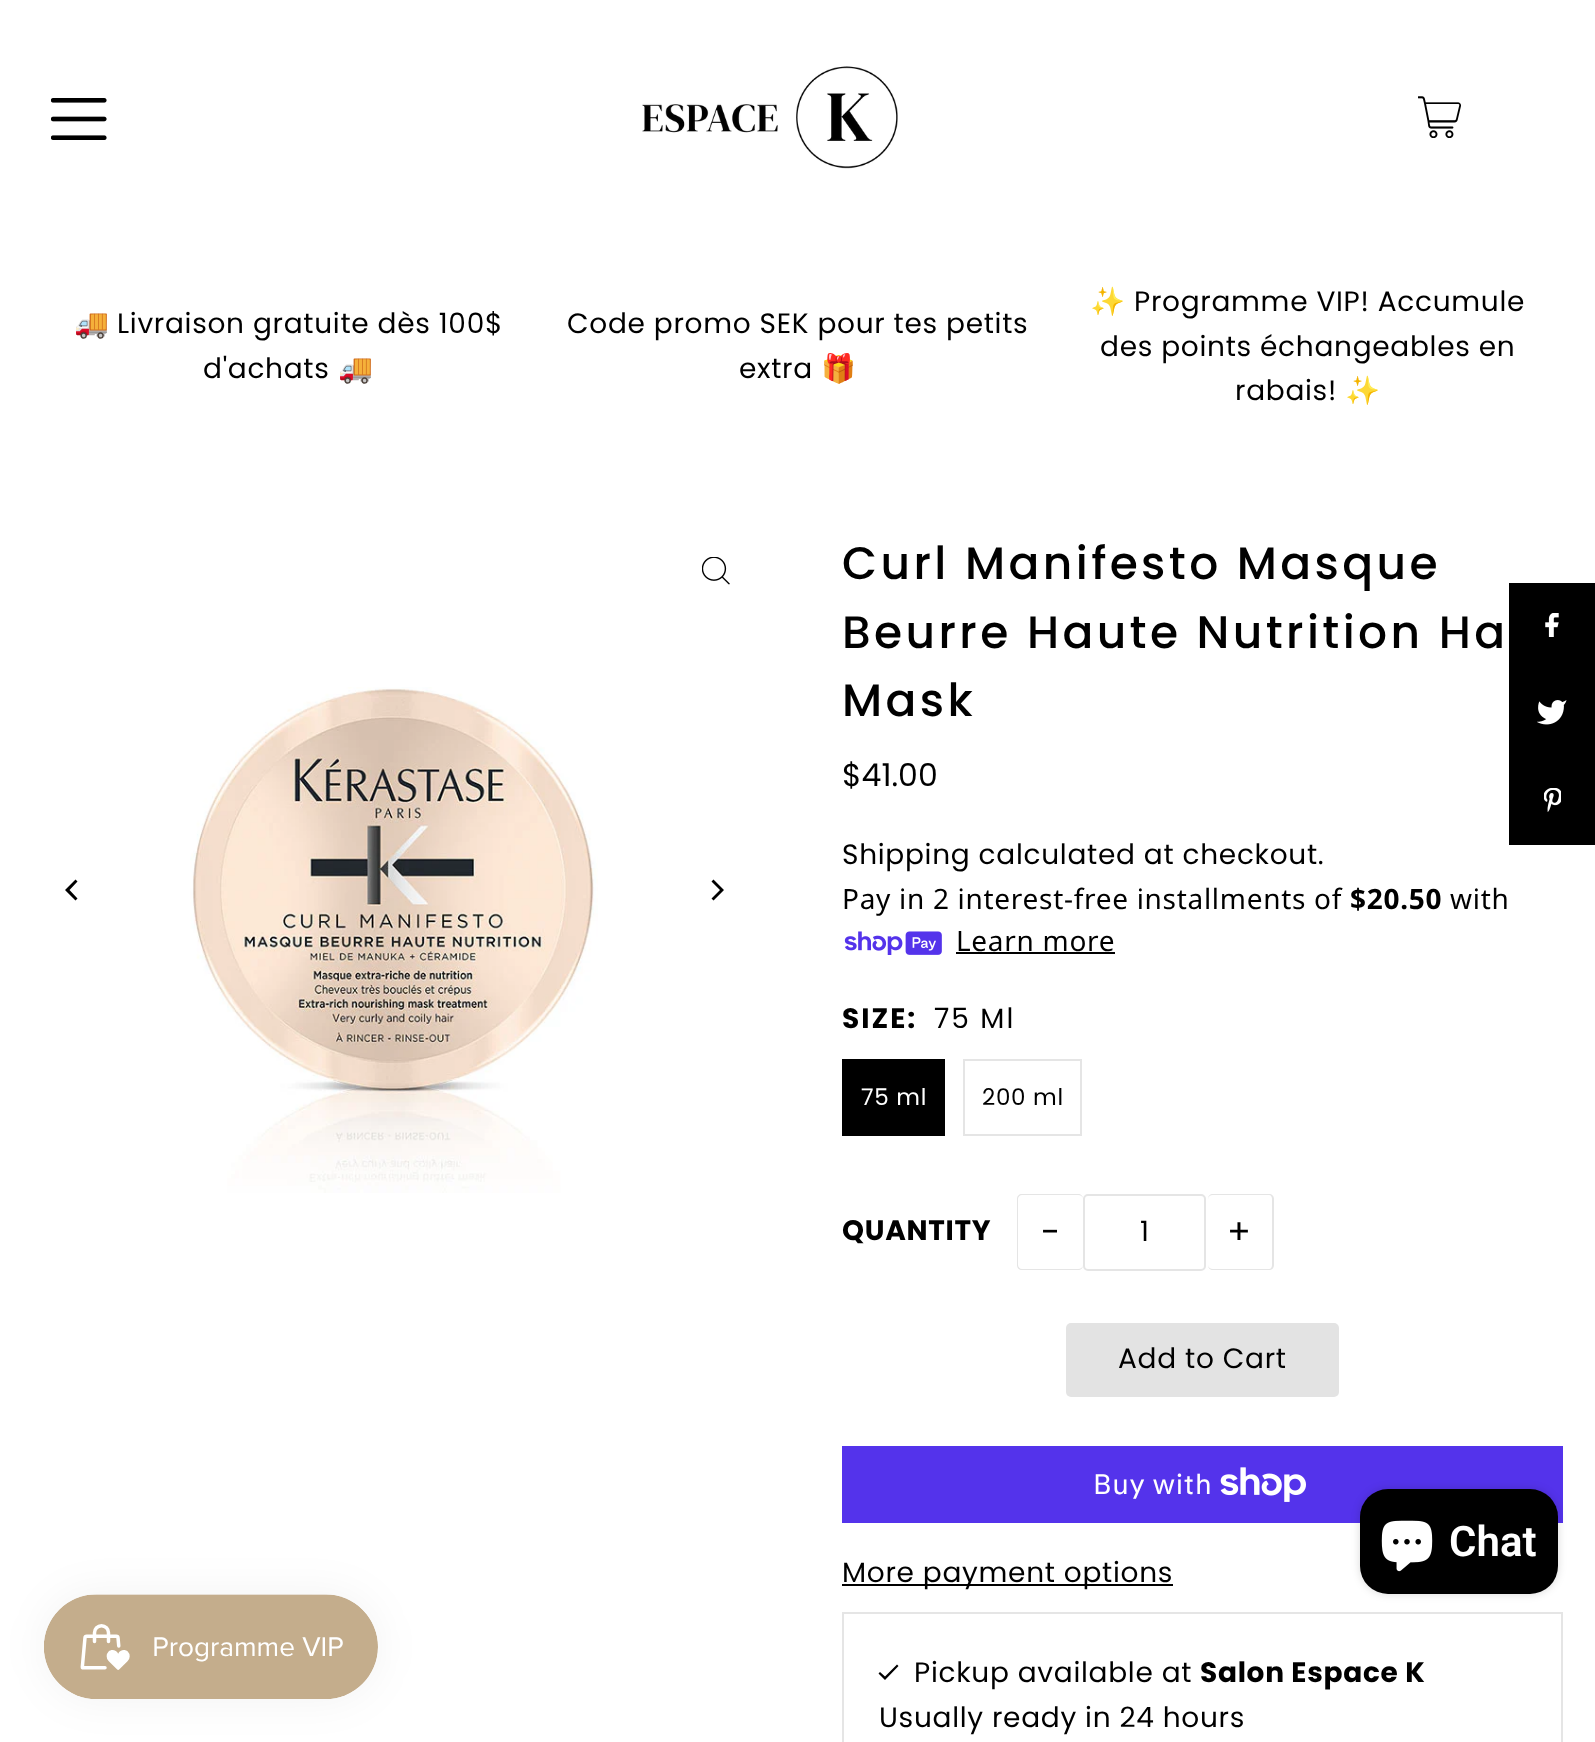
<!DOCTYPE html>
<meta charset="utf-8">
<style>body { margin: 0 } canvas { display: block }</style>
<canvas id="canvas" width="1595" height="1742"></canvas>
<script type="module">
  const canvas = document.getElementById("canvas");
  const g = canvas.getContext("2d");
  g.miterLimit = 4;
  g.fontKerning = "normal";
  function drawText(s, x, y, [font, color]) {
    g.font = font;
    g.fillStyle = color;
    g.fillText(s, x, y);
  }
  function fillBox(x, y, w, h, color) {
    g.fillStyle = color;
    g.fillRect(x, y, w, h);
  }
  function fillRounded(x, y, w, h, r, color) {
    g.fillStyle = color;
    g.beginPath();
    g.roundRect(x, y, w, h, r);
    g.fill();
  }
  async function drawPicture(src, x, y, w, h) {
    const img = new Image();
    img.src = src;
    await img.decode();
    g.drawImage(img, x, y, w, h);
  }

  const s1 = ["28px Noto Color Emoji", "#000000"];
  const s2 = ["28px Poppins", "#000000"];
  const s3 = ["500 45.5px Poppins", "#000000"];
  const s4 = ["31.5px Poppins", "#000000"];
  const s5 = ["28px Noto Sans", "#000000"];
  const s6 = ["bold 28px Noto Sans", "#000000"];
  const s7 = ["bold 28px Poppins", "#000000"];
  const s8 = ["23px Poppins", "#FFFFFF"];
  const s9 = ["23px Poppins", "#000000"];
  const s10 = ["35px Poppins", "#000000"];
  const s11 = ["28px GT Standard", "#FFFFFF"];
  const s12 = ["600 42px Roboto", "#FFFFFF"];

  fillBox(0, 0, 1595, 1742, "#FFFFFF");
  await drawPicture("pic1.png", 51, 98, 56, 42);
  await drawPicture("pic2.png", 642, 66, 256, 103);
  await drawPicture("pic3.png", 1418, 96, 43, 42);
  g.letterSpacing = "0.7px";
  drawText("🚚", 74, 333, s1);
  drawText("Livraison gratuite dès 100$", 117, 333, s2);
  drawText("d'achats", 203, 378, s2);
  drawText("🚚", 338, 378, s1);
  drawText("Code promo SEK pour tes petits", 567, 333, s2);
  drawText("extra", 739, 378, s2);
  drawText("🎁", 821, 378, s1);
  drawText("✨", 1090, 311, s1);
  drawText("Programme VIP! Accumule", 1134, 311, s2);
  drawText("des points échangeables en", 1100, 356, s2);
  drawText("rabais!", 1235, 400, s2);
  drawText("✨", 1345, 400, s1);
  g.beginPath();
  g.moveTo(65, 890);
  g.lineTo(75.5, 900.5);
  g.lineTo(77.5, 898.5);
  g.lineTo(69.5, 890);
  g.lineTo(77.5, 881.5);
  g.lineTo(75.5, 879.5);
  g.closePath();
  g.fill();
  await drawPicture("pic4.png", 702, 557, 28, 28);
  await drawPicture("pic5.png", 190, 687, 408, 506);
  g.beginPath();
  g.moveTo(724, 890);
  g.lineTo(713.5, 879.5);
  g.lineTo(711.5, 881.5);
  g.lineTo(720, 890);
  g.lineTo(711.5, 898.5);
  g.lineTo(713.5, 900.5);
  g.closePath();
  g.fill();
  g.letterSpacing = "3.4px";
  drawText("Curl Manifesto Masque", 842, 579, s3);
  drawText("Beurre Haute Nutrition Ha", 842, 648, s3);
  drawText("Mask", 842, 716, s3);
  g.letterSpacing = "0px";
  drawText("$41.00", 842, 786, s4);
  g.letterSpacing = "0.7px";
  drawText("Shipping calculated at checkout.", 842, 864, s2);
  drawText("Pay in 2 interest-free installments of", 842, 909, s5);
  drawText("$20.50", 1350, 909, s6);
  drawText("with", 1450, 909, s5);
  await drawPicture("pic6.png", 844, 931, 98, 24);
  drawText("Learn more", 956, 951, s5);
  fillBox(956, 952, 159, 2, "#000000");
  g.letterSpacing = "2px";
  drawText("SIZE:", 842, 1028, s7);
  drawText("75 Ml", 934, 1028, s2);
  fillBox(842, 1059, 103, 77, "#000000");
  g.letterSpacing = "0.7px";
  drawText("75 ml", 861, 1105, s8);
  g.strokeStyle = "#E5E5E5";
  g.lineWidth = 2;
  g.strokeRect(964, 1060, 117, 75);
  drawText("200 ml", 982, 1105, s9);
  drawText("QUANTITY", 842, 1240, s7);
  g.fillStyle = "#E5E5E5";
  g.beginPath();
  g.moveTo(1022, 1194);
  g.lineTo(1078, 1194);
  g.bezierCurveTo(1081, 1194, 1083, 1196, 1083, 1199);
  g.lineTo(1083, 1265);
  g.bezierCurveTo(1083, 1268, 1081, 1270, 1078, 1270);
  g.lineTo(1022, 1270);
  g.bezierCurveTo(1019, 1270, 1017, 1268, 1017, 1265);
  g.lineTo(1017, 1199);
  g.bezierCurveTo(1017, 1196, 1019, 1194, 1022, 1194);
  g.closePath();
  g.moveTo(1022, 1195);
  g.lineTo(1078, 1195);
  g.bezierCurveTo(1081, 1195, 1083, 1197, 1083, 1199);
  g.lineTo(1083, 1265);
  g.bezierCurveTo(1083, 1267, 1081, 1269, 1078, 1269);
  g.lineTo(1022, 1269);
  g.bezierCurveTo(1020, 1269, 1018, 1267, 1018, 1265);
  g.lineTo(1018, 1199);
  g.bezierCurveTo(1018, 1197, 1020, 1195, 1022, 1195);
  g.closePath();
  g.fill("evenodd");
  g.letterSpacing = "1px";
  drawText("-", 1041, 1244, s10);
  g.beginPath();
  g.roundRect(1084, 1195, 121, 75, 4);
  g.stroke();
  g.letterSpacing = "0.7px";
  drawText("1", 1140, 1241, s2);
  g.fillStyle = "#E5E5E5";
  g.beginPath();
  g.moveTo(1213, 1194);
  g.lineTo(1269, 1194);
  g.bezierCurveTo(1272, 1194, 1274, 1196, 1274, 1199);
  g.lineTo(1274, 1265);
  g.bezierCurveTo(1274, 1268, 1272, 1270, 1269, 1270);
  g.lineTo(1213, 1270);
  g.bezierCurveTo(1210, 1270, 1208, 1268, 1208, 1265);
  g.lineTo(1208, 1199);
  g.bezierCurveTo(1208, 1196, 1210, 1194, 1213, 1194);
  g.closePath();
  g.moveTo(1213, 1195);
  g.lineTo(1269, 1195);
  g.bezierCurveTo(1271, 1195, 1272, 1197, 1272, 1199);
  g.lineTo(1272, 1265);
  g.bezierCurveTo(1272, 1267, 1271, 1269, 1269, 1269);
  g.lineTo(1213, 1269);
  g.bezierCurveTo(1210, 1269, 1208, 1267, 1208, 1265);
  g.lineTo(1208, 1199);
  g.bezierCurveTo(1208, 1197, 1210, 1195, 1213, 1195);
  g.closePath();
  g.fill("evenodd");
  g.letterSpacing = "1px";
  drawText("+", 1227, 1244, s10);
  fillRounded(1066, 1323, 273, 74, 5, "#E3E3E3");
  g.letterSpacing = "0.7px";
  drawText("Add to Cart", 1118, 1368, s2);
  fillBox(842, 1446, 721, 77, "#5433EB");
  drawText("Buy with", 1093, 1494, s11);
  await drawPicture("pic7.png", 1220, 1467, 86, 35);
  fillBox(842, 1584, 331, 2, "#000000");
  drawText("More payment options", 842, 1582, s2);
  g.strokeRect(843, 1613, 719, 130);
  g.beginPath();
  g.moveTo(885, 1676.5);
  g.lineTo(880, 1672);
  g.lineTo(878.5, 1673.5);
  g.lineTo(885, 1680);
  g.lineTo(898.5, 1666);
  g.lineTo(897, 1664.5);
  g.closePath();
  g.fill();
  drawText("Pickup available at", 914, 1682, s2);
  drawText("Salon Espace K", 1200, 1682, s7);
  drawText("Usually ready in 24 hours", 879, 1727, s2);
  fillBox(1509, 583, 86, 262, "#000000");
  await drawPicture("pic8.png", 1545, 613, 14, 24);
  await drawPicture("pic9.png", 1537, 700, 30, 25);
  await drawPicture("pic10.png", 1544, 788, 17, 24);
  g.fillStyle = "rgba(0, 0, 0, 0.05)";
  g.filter = "blur(22px)";
  g.beginPath();
  g.roundRect(44, 1594, 334, 105, 52.5);
  g.fill();
  g.filter = "none";
  await drawPicture("pic11.png", 44, 1594, 334, 105);
  g.fillStyle = "rgba(0, 0, 0, 0.15)";
  g.filter = "blur(4.5px)";
  g.beginPath();
  g.roundRect(1360, 1489, 198, 105, 28);
  g.fill();
  g.filter = "none";
  fillRounded(1360, 1489, 198, 105, 28, "#000000");
  await drawPicture("pic12.png", 1381, 1520, 52, 52);
  g.letterSpacing = "0px";
  drawText("Chat", 1449, 1556, s12);
</script>
